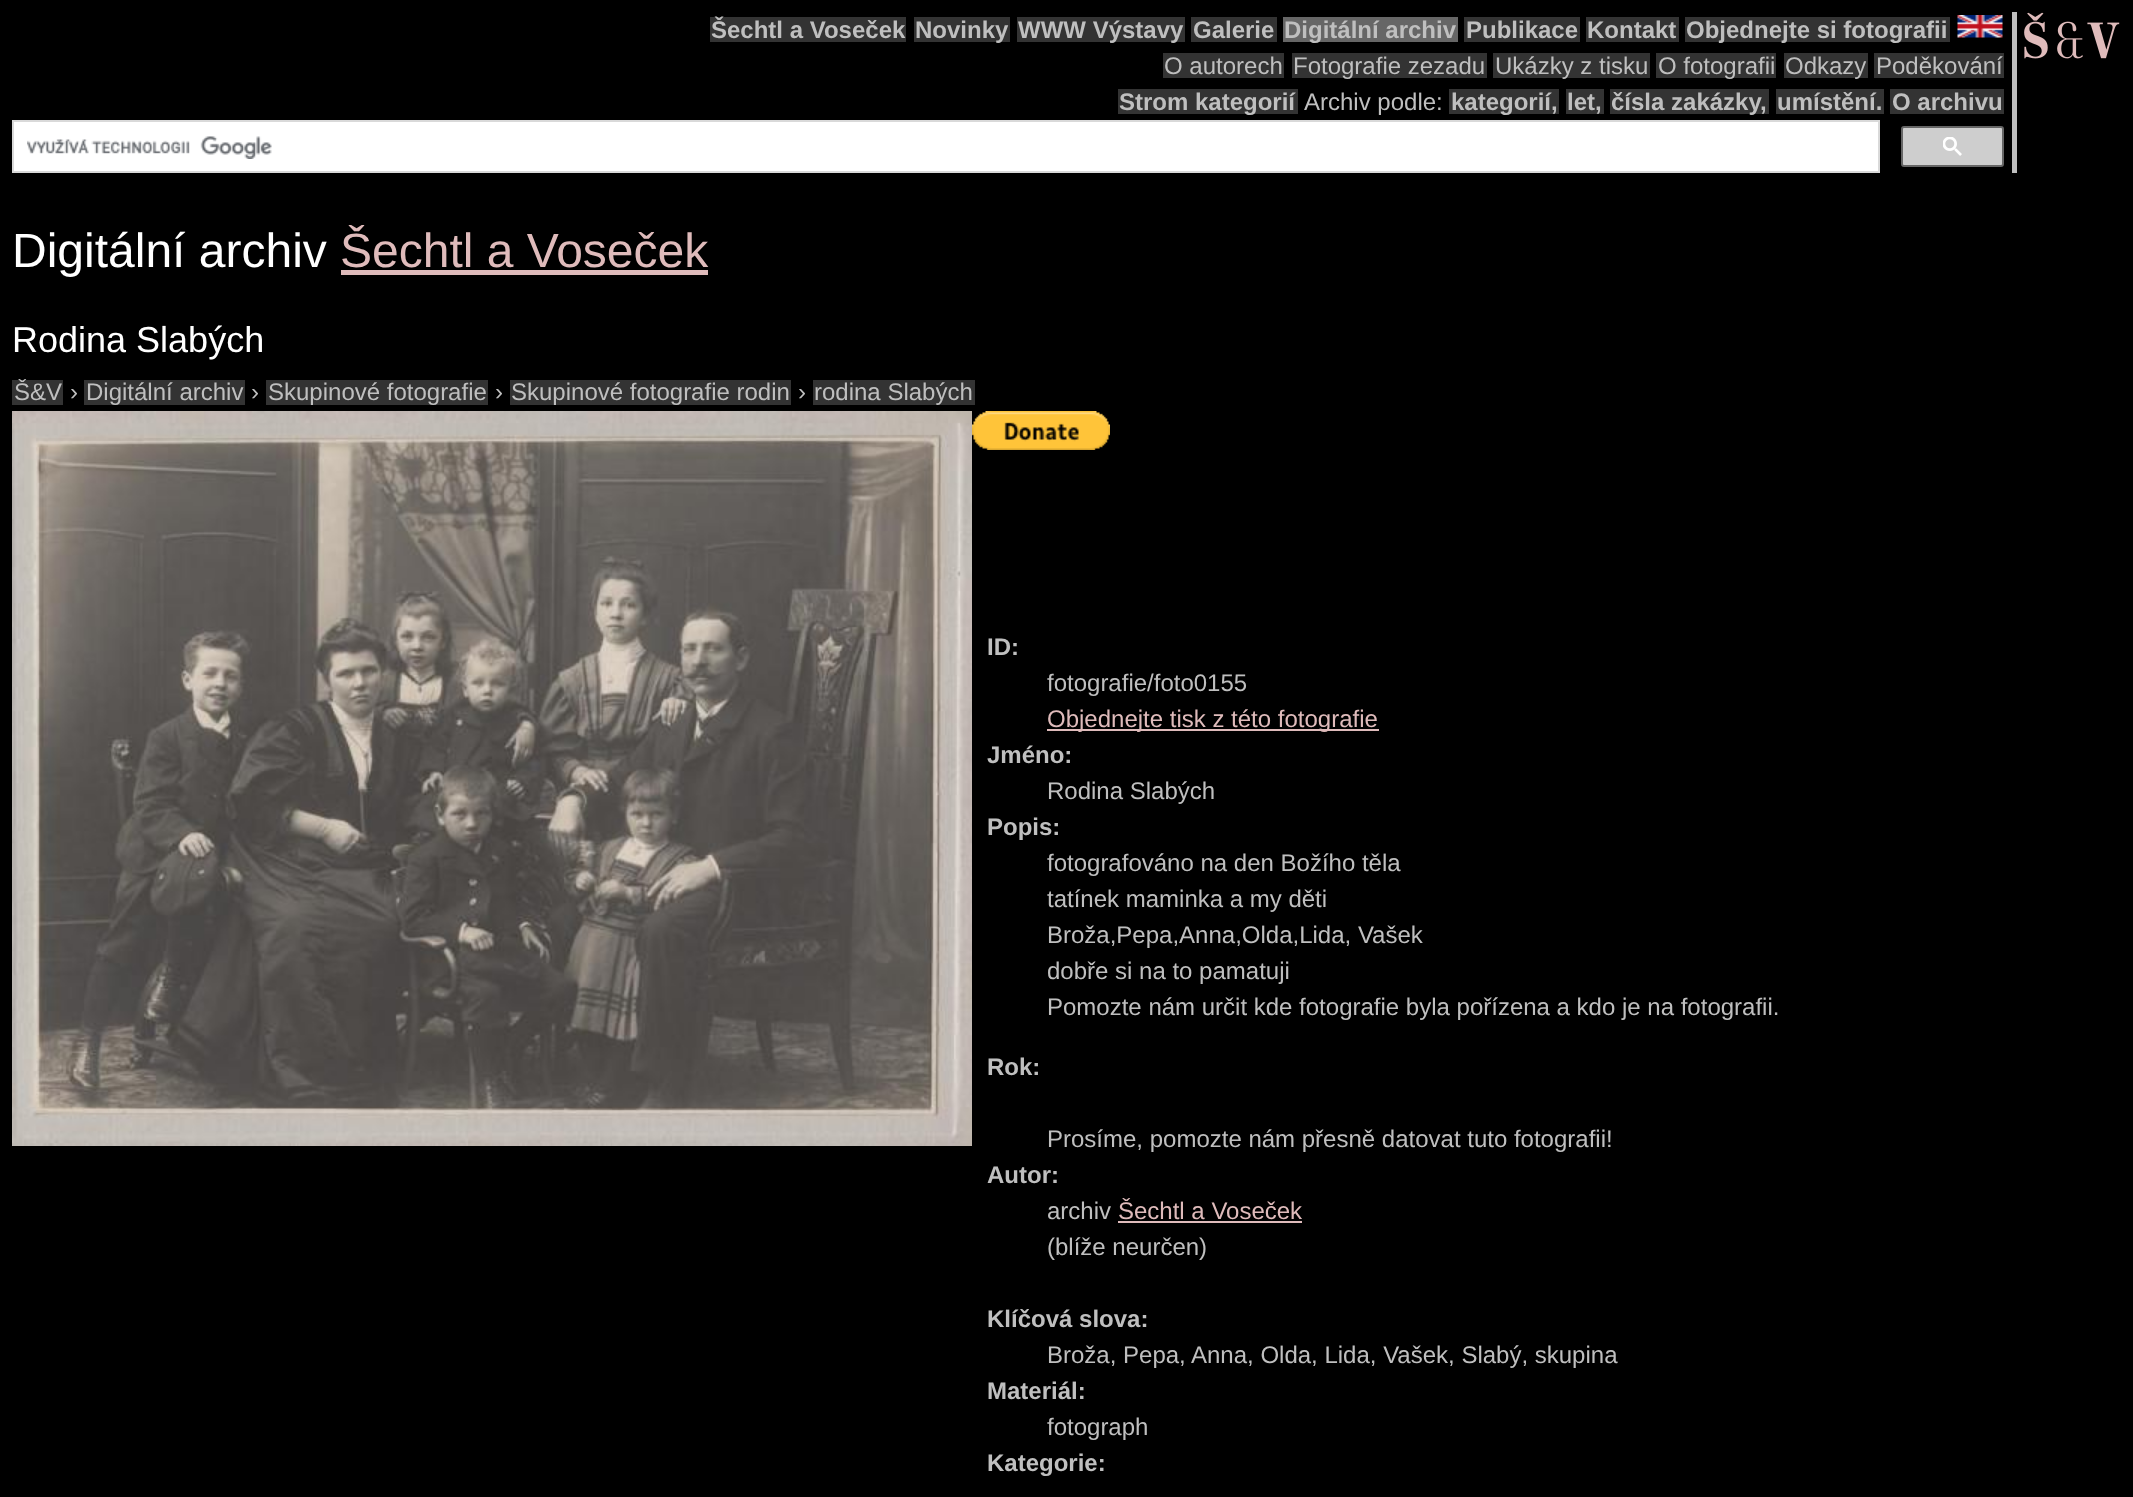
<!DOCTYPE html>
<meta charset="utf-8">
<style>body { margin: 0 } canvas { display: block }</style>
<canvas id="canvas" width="2133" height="1497"></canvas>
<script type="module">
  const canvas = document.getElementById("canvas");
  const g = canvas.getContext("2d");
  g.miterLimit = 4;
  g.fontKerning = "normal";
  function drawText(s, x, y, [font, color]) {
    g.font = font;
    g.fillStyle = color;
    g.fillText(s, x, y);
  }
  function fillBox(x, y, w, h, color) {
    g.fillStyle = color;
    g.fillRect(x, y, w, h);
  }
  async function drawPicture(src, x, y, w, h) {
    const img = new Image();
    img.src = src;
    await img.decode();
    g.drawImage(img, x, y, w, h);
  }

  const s1 = ["bold 24px Liberation Sans", "#BFBFBF"];
  const s2 = ["24px Liberation Sans", "#BFBFBF"];
  const s3 = ["48px Liberation Sans", "#FFFFFF"];
  const s4 = ["48px Liberation Sans", "#DFBBBB"];
  const s5 = ["36px Liberation Sans", "#FFFFFF"];
  const s6 = ["24px Liberation Sans", "#DFBBBB"];

  fillBox(0, 0, 2133, 1497, "#000000");
  fillBox(2012, 12, 5, 161, "#BFBFBF");
  fillBox(710, 17, 196, 25, "#333333");
  drawText("Šechtl a Voseček", 711, 38, s1);
  fillBox(914, 17, 96, 25, "#333333");
  drawText("Novinky", 915, 38, s1);
  fillBox(1017, 17, 168, 25, "#333333");
  drawText("WWW Výstavy", 1018, 38, s1);
  fillBox(1191, 17, 86, 25, "#333333");
  drawText("Galerie", 1193, 38, s1);
  fillBox(1283, 17, 175, 25, "#666666");
  drawText("Digitální archiv", 1284, 38, s1);
  fillBox(1464, 17, 116, 25, "#333333");
  drawText("Publikace", 1466, 38, s1);
  fillBox(1586, 17, 93, 25, "#333333");
  drawText("Kontakt", 1587, 38, s1);
  fillBox(1685, 17, 265, 25, "#333333");
  drawText("Objednejte si fotografii", 1686, 38, s1);
  await drawPicture("pic1.png", 1957, 15, 46, 23);
  fillBox(1163, 53, 121, 25, "#333333");
  drawText("O autorech", 1164, 74, s2);
  fillBox(1292, 53, 195, 25, "#333333");
  drawText("Fotografie zezadu", 1293, 74, s2);
  fillBox(1493, 53, 157, 25, "#333333");
  drawText("Ukázky z tisku", 1495, 74, s2);
  fillBox(1656, 53, 120, 25, "#333333");
  drawText("O fotografii", 1658, 74, s2);
  fillBox(1784, 53, 84, 25, "#333333");
  drawText("Odkazy", 1785, 74, s2);
  fillBox(1874, 53, 130, 25, "#333333");
  drawText("Poděkování", 1876, 74, s2);
  fillBox(1118, 89, 180, 25, "#333333");
  drawText("Strom kategorií", 1119, 110, s1);
  drawText("Archiv podle:", 1304, 110, s2);
  fillBox(1449, 89, 110, 25, "#333333");
  drawText("kategorií,", 1451, 110, s1);
  fillBox(1566, 89, 38, 25, "#333333");
  drawText("let,", 1567, 110, s1);
  fillBox(1610, 89, 159, 25, "#333333");
  drawText("čísla zakázky,", 1611, 110, s1);
  fillBox(1776, 89, 108, 25, "#333333");
  drawText("umístění.", 1777, 110, s1);
  fillBox(1890, 89, 114, 25, "#333333");
  drawText("O archivu", 1892, 110, s1);
  g.fillStyle = "#FFFFFF";
  g.beginPath();
  g.rect(13, 121, 1866, 51);
  g.fill();
  g.strokeStyle = "#D9D9D9";
  g.lineWidth = 2;
  g.stroke();
  await drawPicture("pic2.png", 27, 136, 245, 23);
  g.fillStyle = "#CECECE";
  g.beginPath();
  g.roundRect(1902, 127, 101, 39, 2);
  g.fill();
  g.strokeStyle = "#666666";
  g.stroke();
  await drawPicture("pic3.png", 1943, 137, 19, 19);
  await drawPicture("pic4.png", 2024, 12, 96, 47);
  drawText("Digitální archiv", 12, 267, s3);
  drawText("Šechtl a Voseček", 340, 267, s4);
  fillBox(341, 270, 367, 5, "#DFBBBB");
  drawText("Rodina Slabých", 12, 352, s5);
  fillBox(12, 380, 51, 25, "#333333");
  drawText("Š&V", 14, 400, s2);
  drawText("›", 70, 400, s2);
  fillBox(84, 380, 161, 25, "#333333");
  drawText("Digitální archiv", 86, 400, s2);
  drawText("›", 251, 400, s2);
  fillBox(266, 380, 222, 25, "#333333");
  drawText("Skupinové fotografie", 268, 400, s2);
  drawText("›", 495, 400, s2);
  fillBox(510, 380, 281, 25, "#333333");
  drawText("Skupinové fotografie rodin", 511, 400, s2);
  drawText("›", 798, 400, s2);
  fillBox(813, 380, 162, 25, "#333333");
  drawText("rodina Slabých", 814, 400, s2);
  await drawPicture("pic5.png", 12, 411, 960, 735);
  await drawPicture("pic6.png", 972, 411, 138, 39);
  drawText("ID:", 987, 655, s1);
  drawText("fotografie/foto0155", 1047, 691, s2);
  fillBox(1047, 729, 332, 2, "#DFBBBB");
  drawText("Objednejte tisk z této fotografie", 1047, 727, s6);
  drawText("Jméno:", 987, 763, s1);
  drawText("Rodina Slabých", 1047, 799, s2);
  drawText("Popis:", 987, 835, s1);
  drawText("fotografováno na den Božího těla", 1047, 871, s2);
  drawText("tatínek maminka a my děti", 1047, 907, s2);
  drawText("Broža,Pepa,Anna,Olda,Lida, Vašek", 1047, 943, s2);
  drawText("dobře si na to pamatuji", 1047, 979, s2);
  drawText("Pomozte nám určit kde fotografie byla pořízena a kdo je na fotografii.", 1047, 1015, s2);
  drawText("Rok:", 987, 1075, s1);
  drawText("Prosíme, pomozte nám přesně datovat tuto fotografii!", 1047, 1147, s2);
  drawText("Autor:", 987, 1183, s1);
  drawText("archiv", 1047, 1219, s2);
  drawText("Šechtl a Voseček", 1118, 1219, s6);
  fillBox(1118, 1221, 184, 2, "#DFBBBB");
  drawText("(blíže neurčen)", 1047, 1255, s2);
  drawText("Klíčová slova:", 987, 1327, s1);
  drawText("Broža, Pepa,", 1047, 1363, s2);
  drawText("Anna, Olda, Lida, Vašek, Slabý, skupina", 1191, 1363, s2);
  drawText("Materiál:", 987, 1399, s1);
  drawText("fotograph", 1047, 1435, s2);
  drawText("Kategorie:", 987, 1471, s1);
</script>
